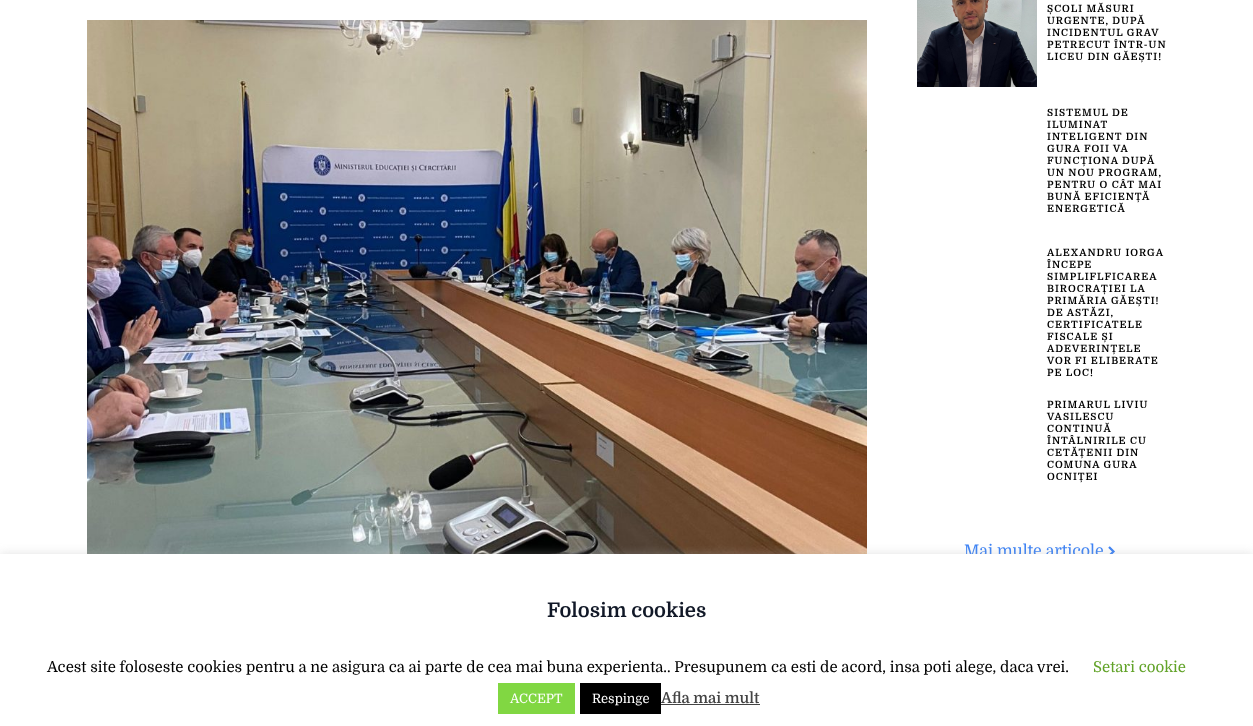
<!DOCTYPE html>
<meta charset="utf-8">
<style>body { margin: 0 } canvas { display: block }</style>
<canvas id="canvas" width="1253" height="726"></canvas>
<script type="module">
  const canvas = document.getElementById("canvas");
  const g = canvas.getContext("2d");
  g.miterLimit = 4;
  g.fontKerning = "normal";
  function drawText(s, x, y, [font, color]) {
    g.font = font;
    g.fillStyle = color;
    g.fillText(s, x, y);
  }
  function fillBox(x, y, w, h, color) {
    g.fillStyle = color;
    g.fillRect(x, y, w, h);
  }
  async function drawPicture(src, x, y, w, h) {
    const img = new Image();
    img.src = src;
    await img.decode();
    g.drawImage(img, x, y, w, h);
  }

  const s1 = ["bold 10px Domine", "#000000"];
  const s2 = ["16px Domine", "#3B82F6"];
  const s3 = ["bold 20px Domine", "#111827"];
  const s4 = ["15px Domine", "#000000"];
  const s5 = ["15px Domine", "#62A329"];
  const s6 = ["13px Domine", "#FFFFFF"];
  const s7 = ["600 15px Domine", "#444444"];

  fillBox(0, 0, 1253, 726, "#FFFFFF");
  await drawPicture("pic1.png", 87, 20, 780, 534);
  await drawPicture("pic2.png", 917, 0, 120, 87);
  g.letterSpacing = "1px";
  drawText("ȘCOLI MĂSURI", 1047, 12, s1);
  drawText("URGENTE, DUPĂ", 1047, 24, s1);
  drawText("INCIDENTUL GRAV", 1047, 36, s1);
  drawText("PETRECUT ÎNTR-UN", 1047, 48, s1);
  drawText("LICEU DIN GĂEȘTI!", 1047, 60, s1);
  drawText("SISTEMUL DE", 1047, 116, s1);
  drawText("ILUMINAT", 1047, 128, s1);
  drawText("INTELIGENT DIN", 1047, 140, s1);
  drawText("GURA FOII VA", 1047, 152, s1);
  drawText("FUNCȚIONA DUPĂ", 1047, 164, s1);
  drawText("UN NOU PROGRAM,", 1047, 176, s1);
  drawText("PENTRU O CÂT MAI", 1047, 188, s1);
  drawText("BUNĂ EFICIENȚĂ", 1047, 200, s1);
  drawText("ENERGETICĂ", 1047, 212, s1);
  drawText("ALEXANDRU IORGA", 1047, 256, s1);
  drawText("ÎNCEPE", 1047, 268, s1);
  drawText("SIMPLIFLFICAREA", 1047, 280, s1);
  drawText("BIROCRAȚIEI LA", 1047, 292, s1);
  drawText("PRIMĂRIA GĂEȘTI!", 1047, 304, s1);
  drawText("DE ASTĂZI,", 1047, 316, s1);
  drawText("CERTIFICATELE", 1047, 328, s1);
  drawText("FISCALE ȘI", 1047, 340, s1);
  drawText("ADEVERINȚELE", 1047, 352, s1);
  drawText("VOR FI ELIBERATE", 1047, 364, s1);
  drawText("PE LOC!", 1047, 376, s1);
  drawText("PRIMARUL LIVIU", 1047, 408, s1);
  drawText("VASILESCU", 1047, 420, s1);
  drawText("CONTINUĂ", 1047, 432, s1);
  drawText("ÎNTÂLNIRILE CU", 1047, 444, s1);
  drawText("CETĂȚENII DIN", 1047, 456, s1);
  drawText("COMUNA GURA", 1047, 468, s1);
  drawText("OCNIȚEI", 1047, 480, s1);
  g.letterSpacing = "0px";
  drawText("Mai multe articole", 964, 556, s2);
  g.beginPath();
  g.moveTo(1109, 547);
  g.lineTo(1113.5, 551.5);
  g.lineTo(1109, 556);
  g.strokeStyle = "#3B82F6";
  g.lineWidth = 2.2;
  g.stroke();
  g.fillStyle = "rgba(172, 171, 171, 0.3)";
  g.filter = "blur(5px)";
  g.beginPath();
  g.rect(0, 553, 1253, 172);
  g.fill();
  g.filter = "none";
  fillBox(0, 554, 1253, 172, "#FFFFFF");
  drawText("Folosim cookies", 547, 617, s3);
  drawText("Acest site foloseste cookies pentru a ne asigura ca ai parte de cea mai buna experienta.. Presupunem ca esti de acord, insa poti alege, daca vrei.", 47, 672, s4);
  drawText("Setari cookie", 1093, 672, s5);
  fillBox(498, 683, 77, 31, "#81D742");
  drawText("ACCEPT", 510, 703, s6);
  fillBox(580, 683, 81, 31, "#000000");
  drawText("Respinge", 592, 703, s6);
  drawText("Afla mai mult", 661, 703, s7);
  fillBox(661, 704, 99, 1, "#444444");
</script>
